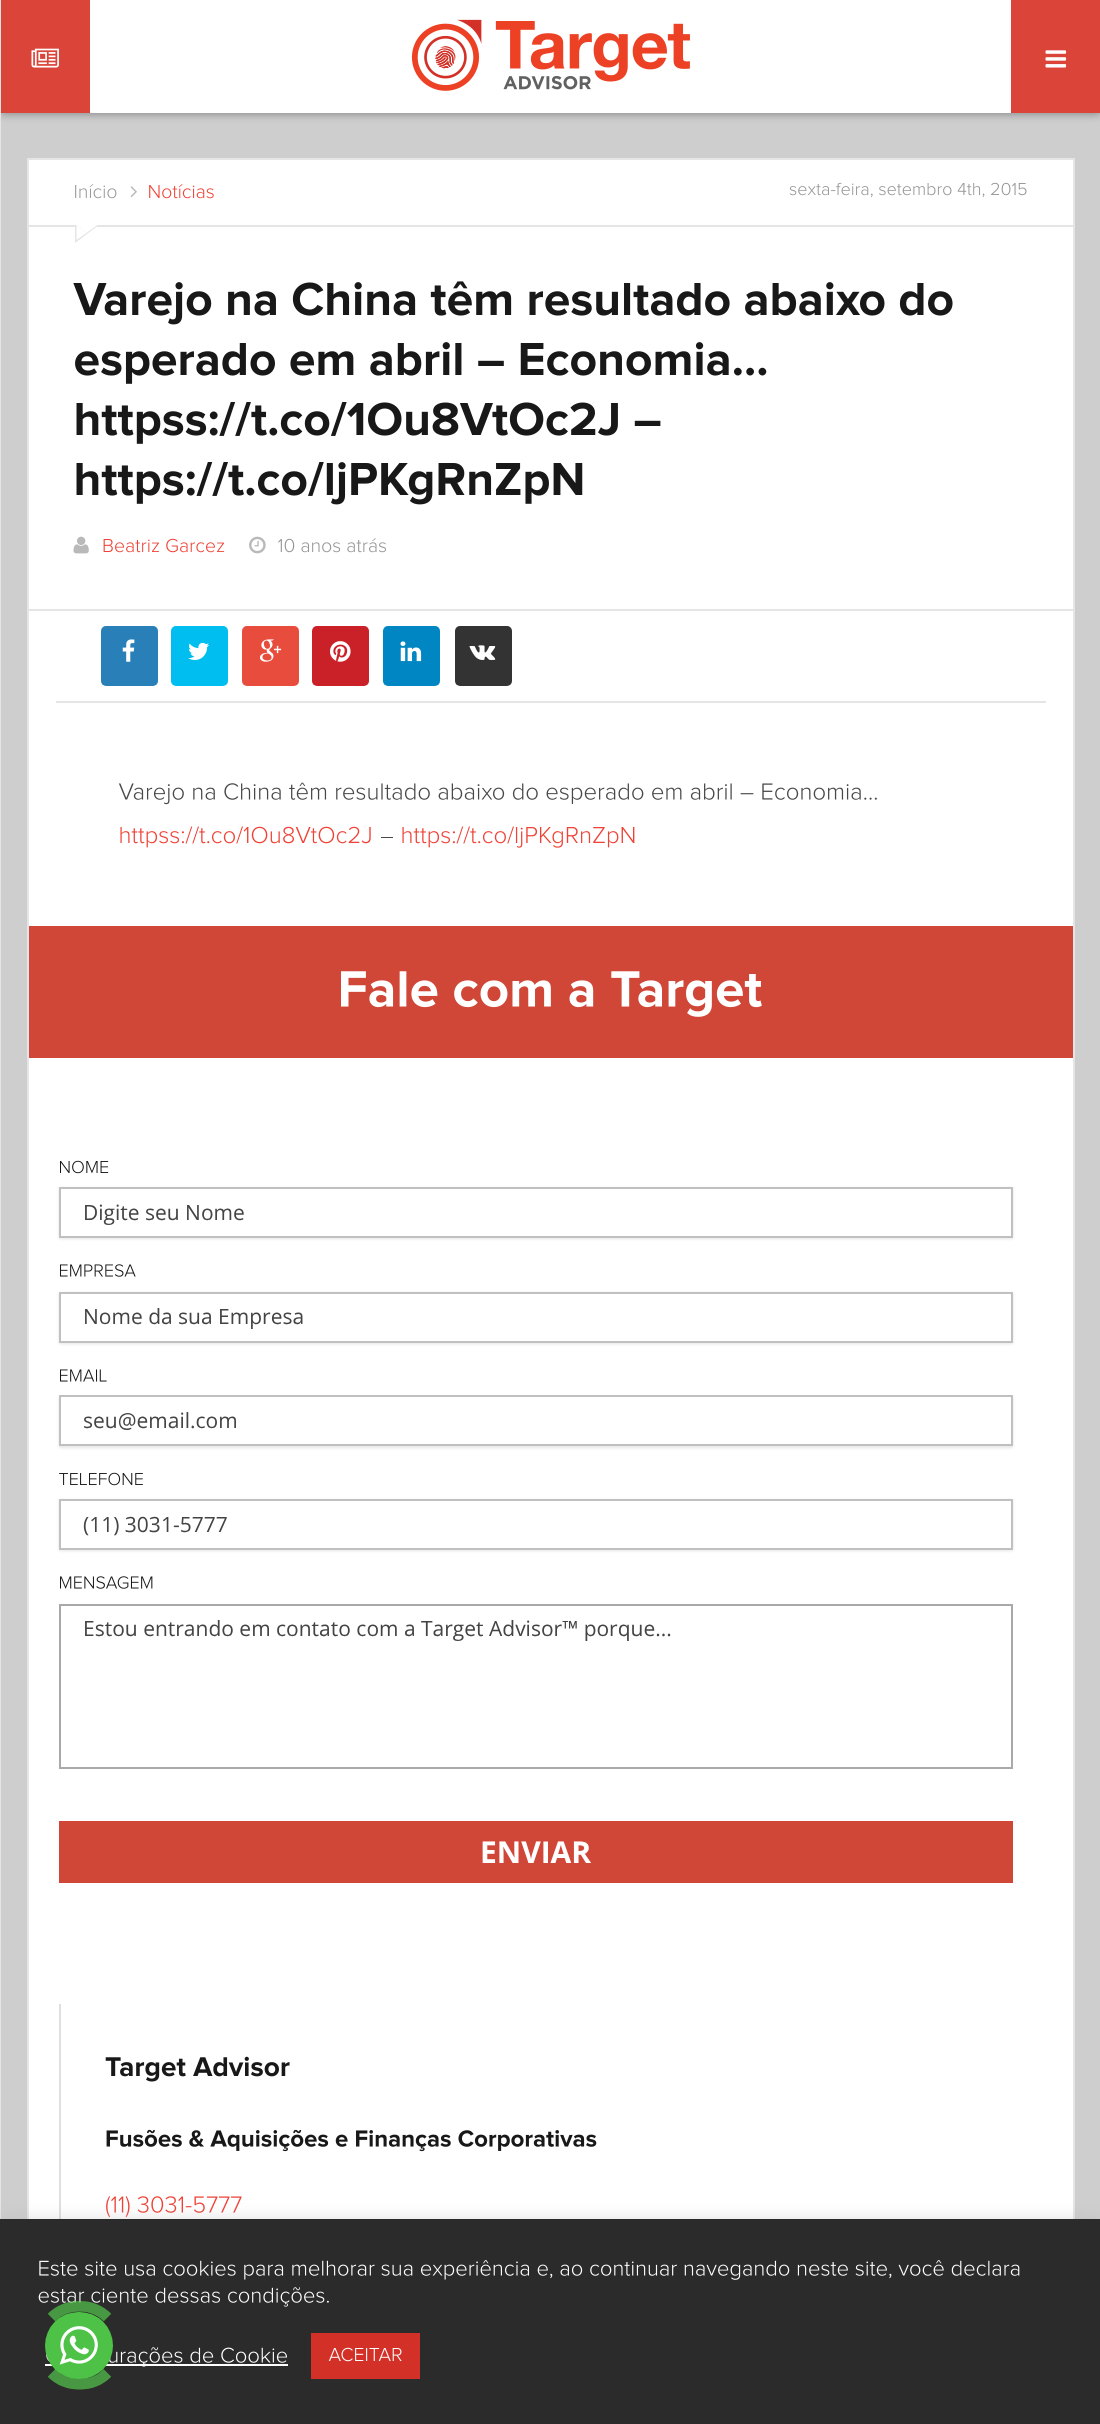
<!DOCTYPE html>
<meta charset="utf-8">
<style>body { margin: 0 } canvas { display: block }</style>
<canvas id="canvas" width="1100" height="2424"></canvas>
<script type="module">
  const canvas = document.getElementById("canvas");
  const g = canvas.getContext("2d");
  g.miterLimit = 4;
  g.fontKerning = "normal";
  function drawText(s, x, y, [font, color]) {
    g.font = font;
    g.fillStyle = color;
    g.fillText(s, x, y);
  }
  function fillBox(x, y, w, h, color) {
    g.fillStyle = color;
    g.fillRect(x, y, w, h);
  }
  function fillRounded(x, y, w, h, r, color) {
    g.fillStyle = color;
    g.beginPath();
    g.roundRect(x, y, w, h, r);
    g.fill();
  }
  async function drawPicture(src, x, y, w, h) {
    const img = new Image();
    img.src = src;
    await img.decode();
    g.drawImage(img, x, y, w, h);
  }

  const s1 = ["21px Open Sans", "#444444"];
  const s2 = ["bold 30px Open Sans", "#FFFFFF"];

  fillBox(0, 0, 1100, 2424, "#CECECE");
  g.fillStyle = "rgba(0, 0, 0, 0.35)";
  g.filter = "blur(4.5px)";
  g.beginPath();
  g.rect(0, 2, 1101, 112);
  g.fill();
  g.filter = "none";
  fillBox(90, 0, 921, 113, "#FFFFFF");
  fillBox(1, 0, 89, 113, "#DB4439");
  await drawPicture("pic1.png", 31, 48, 28, 20);
  await drawPicture("pic2.png", 411, 19, 279, 72);
  fillBox(1011, 0, 89, 113, "#DB4439");
  await drawPicture("pic3.png", 1045, 50, 22, 18);
  fillBox(0, 0, 1, 2219, "#E5E5E5");
  fillBox(29, 160, 1044, 2059, "#FFFFFF");
  fillBox(27, 158, 1047, 2, "#E5E5E5");
  fillBox(1073, 158, 2, 2061, "#E5E5E5");
  fillBox(27, 158, 2, 2061, "#E5E5E5");
  fillBox(29, 609, 1044, 2, "#E5E5E5");
  fillBox(29, 225, 1044, 2, "#E5E5E5");
  await drawPicture("pic4.png", 75, 184, 42, 15);
  await drawPicture("pic5.png", 130, 186, 7, 11);
  await drawPicture("pic6.png", 149, 184, 65, 15);
  g.beginPath();
  g.moveTo(75, 225);
  g.lineTo(99, 225);
  g.lineTo(87, 234);
  g.closePath();
  g.fill();
  g.beginPath();
  g.moveTo(75, 243);
  g.lineTo(75, 225);
  g.lineTo(87, 234);
  g.closePath();
  g.fill();
  g.fillStyle = "#FFFFFF";
  g.beginPath();
  g.moveTo(76.5, 225);
  g.lineTo(97.5, 225);
  g.lineTo(87, 232.5);
  g.closePath();
  g.fill();
  g.beginPath();
  g.moveTo(76.5, 240);
  g.lineTo(76.5, 225);
  g.lineTo(87, 232.5);
  g.closePath();
  g.fill();
  await drawPicture("pic7.png", 789, 182, 238, 16);
  await drawPicture("pic8.png", 73, 281, 880, 44);
  await drawPicture("pic9.png", 75, 342, 692, 42);
  await drawPicture("pic10.png", 76, 402, 585, 42);
  await drawPicture("pic11.png", 76, 462, 507, 43);
  await drawPicture("pic12.png", 73, 536, 16, 18);
  await drawPicture("pic13.png", 103, 538, 122, 15);
  await drawPicture("pic14.png", 249, 536, 17, 18);
  await drawPicture("pic15.png", 278, 538, 108, 15);
  fillBox(56, 701, 990, 2, "#E5E5E5");
  fillRounded(101, 626, 57, 60, 5, "#2980B9");
  await drawPicture("pic16.png", 122, 639, 13, 23);
  fillRounded(171, 626, 57, 60, 5, "#00BFF0");
  await drawPicture("pic17.png", 188, 642, 21, 18);
  fillRounded(242, 626, 57, 60, 5, "#E74C3C");
  await drawPicture("pic18.png", 259, 639, 23, 23);
  fillRounded(312, 626, 57, 60, 5, "#CA2128");
  await drawPicture("pic19.png", 330, 641, 21, 21);
  fillRounded(383, 626, 57, 60, 5, "#0087C3");
  await drawPicture("pic20.png", 400, 641, 22, 21);
  fillRounded(455, 626, 57, 60, 5, "#333333");
  await drawPicture("pic21.png", 469, 645, 27, 15);
  await drawPicture("pic22.png", 118, 782, 759, 23);
  await drawPicture("pic23.png", 120, 826, 251, 22);
  fillBox(381, 837, 12, 1, "#474747");
  await drawPicture("pic24.png", 402, 826, 233, 22);
  fillBox(29, 926, 1044, 132, "#D04738");
  await drawPicture("pic25.png", 341, 971, 421, 46);
  await drawPicture("pic26.png", 60, 1160, 49, 14);
  g.fillStyle = "rgba(0, 0, 0, 0.1)";
  g.filter = "blur(1.5px)";
  g.beginPath();
  g.rect(59, 1188, 954, 51);
  g.fill();
  g.filter = "none";
  g.fillStyle = "#FFFFFF";
  g.beginPath();
  g.rect(60, 1188, 952, 49);
  g.fill();
  g.strokeStyle = "#C0C0C0";
  g.lineWidth = 2;
  g.stroke();
  drawText("Digite seu Nome", 83, 1220, s1);
  await drawPicture("pic27.png", 60, 1264, 76, 13);
  g.fillStyle = "rgba(0, 0, 0, 0.1)";
  g.filter = "blur(1.5px)";
  g.beginPath();
  g.rect(59, 1293, 954, 51);
  g.fill();
  g.filter = "none";
  g.fillStyle = "#FFFFFF";
  g.beginPath();
  g.rect(60, 1293, 952, 49);
  g.fill();
  g.stroke();
  drawText("Nome da sua Empresa", 83, 1324, s1);
  await drawPicture("pic28.png", 60, 1369, 47, 13);
  g.fillStyle = "rgba(0, 0, 0, 0.1)";
  g.filter = "blur(1.5px)";
  g.beginPath();
  g.rect(59, 1397, 954, 51);
  g.fill();
  g.filter = "none";
  g.fillStyle = "#FFFFFF";
  g.beginPath();
  g.rect(60, 1396, 952, 49);
  g.fill();
  g.stroke();
  drawText("seu@email.com", 83, 1428, s1);
  await drawPicture("pic29.png", 59, 1472, 84, 14);
  g.fillStyle = "rgba(0, 0, 0, 0.1)";
  g.filter = "blur(1.5px)";
  g.beginPath();
  g.rect(59, 1500, 954, 51);
  g.fill();
  g.filter = "none";
  g.fillStyle = "#FFFFFF";
  g.beginPath();
  g.rect(60, 1500, 952, 49);
  g.fill();
  g.stroke();
  drawText("(11) 3031-5777", 83, 1532, s1);
  await drawPicture("pic30.png", 60, 1576, 93, 13);
  g.strokeStyle = "#A9A9A9";
  g.strokeRect(60, 1605, 952, 163);
  drawText("Estou entrando em contato com a Target Advisor™ porque...", 83, 1636, s1);
  fillBox(59, 1821, 954, 62, "#D04738");
  drawText("ENVIAR", 480, 1863, s2);
  fillBox(59, 2004, 2, 215, "#DFDFDF");
  await drawPicture("pic31.png", 105, 2056, 185, 26);
  await drawPicture("pic32.png", 106, 2129, 491, 23);
  await drawPicture("pic33.png", 106, 2196, 136, 22);
  g.fillStyle = "rgba(172, 171, 171, 0.3)";
  g.filter = "blur(7.5px)";
  g.beginPath();
  g.rect(0, 2217, 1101, 206);
  g.fill();
  g.filter = "none";
  fillBox(0, 2219, 1100, 205, "#2B2B2B");
  await drawPicture("pic34.png", 39, 2260, 981, 20);
  await drawPicture("pic35.png", 38, 2287, 291, 20);
  fillBox(45, 2364, 243, 2, "#FFFFFF");
  await drawPicture("pic36.png", 46, 2347, 241, 20);
  fillBox(311, 2333, 109, 46, "#D33127");
  await drawPicture("pic37.png", 328, 2347, 74, 15);
  fillRounded(45, 2312, 68, 67, 33.5, "#4DC247");
  g.beginPath();
  g.moveTo(51.5, 2317.5);
  g.bezierCurveTo(66.5, 2302.5, 92.5, 2302.5, 107.5, 2317.5);
  g.strokeStyle = "rgba(89, 212, 81, 0.4)";
  g.lineWidth = 10.5;
  g.stroke();
  g.beginPath();
  g.moveTo(107.5, 2373);
  g.bezierCurveTo(92.5, 2388, 66.5, 2388, 51.5, 2373);
  g.stroke();
  g.beginPath();
  g.moveTo(51.5, 2317.5);
  g.bezierCurveTo(66.5, 2302.5, 92.5, 2302.5, 107.5, 2317.5);
  g.stroke();
  g.beginPath();
  g.moveTo(107.5, 2373);
  g.bezierCurveTo(92.5, 2388, 66.5, 2388, 51.5, 2373);
  g.stroke();
  await drawPicture("pic38.png", 59, 2326, 39, 39);
</script>
